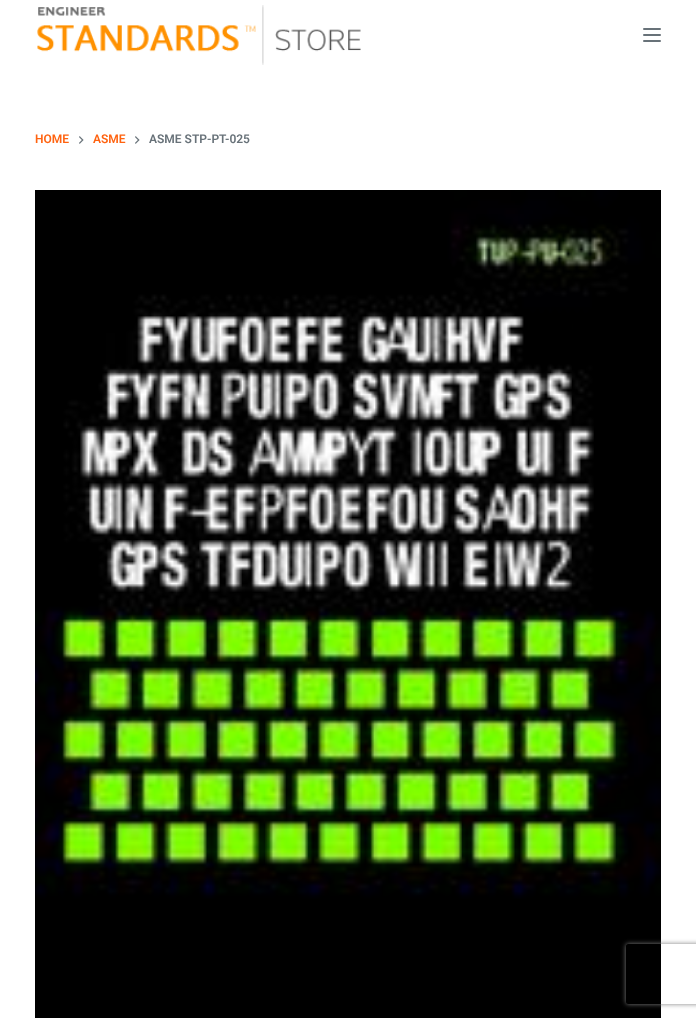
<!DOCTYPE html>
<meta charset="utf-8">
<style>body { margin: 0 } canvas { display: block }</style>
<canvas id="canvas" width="696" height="1018"></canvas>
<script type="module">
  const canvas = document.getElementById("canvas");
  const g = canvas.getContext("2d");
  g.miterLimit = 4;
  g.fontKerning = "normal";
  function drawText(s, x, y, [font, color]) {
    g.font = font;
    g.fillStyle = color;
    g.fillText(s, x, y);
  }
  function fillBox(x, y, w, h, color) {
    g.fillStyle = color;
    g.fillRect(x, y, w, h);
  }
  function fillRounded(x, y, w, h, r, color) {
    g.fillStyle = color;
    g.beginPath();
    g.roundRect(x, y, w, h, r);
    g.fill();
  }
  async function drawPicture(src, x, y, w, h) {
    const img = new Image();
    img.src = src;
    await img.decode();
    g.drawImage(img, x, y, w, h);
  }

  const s1 = ["600 12px Roboto", "#FF6310"];
  const s2 = ["600 12px Roboto", "#687279"];

  fillBox(0, 0, 696, 1018, "#FFFFFF");
  await drawPicture("pic1.png", 37, 5, 324, 60);
  fillRounded(643, 28, 18, 2, 1, "#687279");
  fillRounded(643, 34, 18, 2, 1, "#687279");
  fillRounded(643, 40, 18, 2, 1, "#687279");
  drawText("HOME", 35, 143, s1);
  await drawPicture("pic2.png", 79, 136, 5, 8);
  drawText("ASME", 93, 143, s1);
  await drawPicture("pic2.png", 135, 136, 5, 8);
  drawText("ASME STP-PT-025", 149, 143, s2);
  await drawPicture("pic3.png", 35, 190, 626, 828);
  g.save();
  g.beginPath();
  g.moveTo(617, 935);
  g.lineTo(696, 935);
  g.lineTo(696, 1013);
  g.lineTo(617, 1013);
  g.closePath();
  g.moveTo(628, 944);
  g.lineTo(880, 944);
  g.bezierCurveTo(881, 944, 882, 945, 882, 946);
  g.lineTo(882, 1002);
  g.bezierCurveTo(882, 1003, 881, 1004, 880, 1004);
  g.lineTo(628, 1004);
  g.bezierCurveTo(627, 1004, 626, 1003, 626, 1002);
  g.lineTo(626, 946);
  g.bezierCurveTo(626, 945, 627, 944, 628, 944);
  g.closePath();
  g.clip("evenodd");
  g.fillStyle = "#808080";
  g.filter = "blur(2.5px)";
  g.beginPath();
  g.roundRect(626, 944, 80, 60, 2);
  g.fill();
  g.filter = "none";
  g.restore();
</script>
